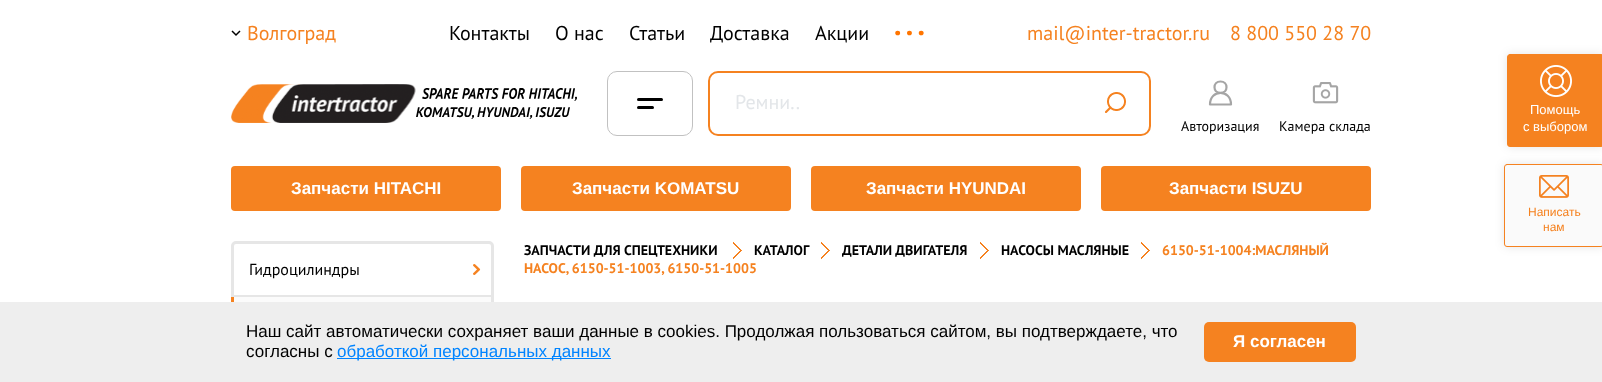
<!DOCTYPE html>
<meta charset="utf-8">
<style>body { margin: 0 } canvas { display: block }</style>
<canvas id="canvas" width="1602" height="382"></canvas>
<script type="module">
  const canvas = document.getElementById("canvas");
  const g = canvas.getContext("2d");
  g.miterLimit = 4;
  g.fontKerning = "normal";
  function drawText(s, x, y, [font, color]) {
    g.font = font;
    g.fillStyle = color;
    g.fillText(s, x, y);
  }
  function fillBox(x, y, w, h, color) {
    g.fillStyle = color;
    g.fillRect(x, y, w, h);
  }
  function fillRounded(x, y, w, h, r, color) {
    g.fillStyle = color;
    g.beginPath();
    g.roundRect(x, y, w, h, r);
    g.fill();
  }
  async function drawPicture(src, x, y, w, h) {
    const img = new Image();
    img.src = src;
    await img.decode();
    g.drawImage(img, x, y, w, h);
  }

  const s1 = ["20px PT Sans", "#F58220"];
  const s2 = ["20px PT Sans", "#000000"];
  const s3 = ["bold 30px PT Sans", "#FF7500"];
  const s4 = ["20px PT Sans", "#E3E6E9"];
  const s5 = ["14px PT Sans", "#000000"];
  const s6 = ["bold 17px Liberation Sans", "#FFFFFF"];
  const s7 = ["16px PT Sans", "#000000"];
  const s8 = ["bold 14px PT Sans", "#000000"];
  const s9 = ["bold 14px PT Sans", "#F58220"];
  const s10 = ["13px Liberation Sans", "#FFFFFF"];
  const s11 = ["12px Liberation Sans", "#F58220"];
  const s12 = ["17px Liberation Sans", "#000000"];
  const s13 = ["17px Liberation Sans", "#0084FF"];

  fillBox(0, 0, 1602, 382, "#FFFFFF");
  g.beginPath();
  g.moveTo(232, 31);
  g.lineTo(236, 35);
  g.lineTo(240, 31);
  g.strokeStyle = "#000000";
  g.lineWidth = 1.5;
  g.stroke();
  drawText("Волгоград", 247, 40, s1);
  drawText("Контакты", 449, 40, s2);
  drawText("О нас", 555, 40, s2);
  drawText("Статьи", 629, 40, s2);
  drawText("Доставка", 710, 40, s2);
  drawText("Акции", 815, 40, s2);
  g.letterSpacing = "4px";
  drawText("...", 894, 35, s3);
  g.letterSpacing = "0px";
  drawText("mail@inter-tractor.ru", 1027, 40, s1);
  drawText("8 800 550 28 70", 1230, 40, s1);
  await drawPicture("pic1.png", 231, 84, 185, 39);
  await drawPicture("pic2.png", 416, 88, 161, 31);
  g.beginPath();
  g.roundRect(607.5, 71.5, 85, 64, 9.5);
  g.strokeStyle = "#C1C1C1";
  g.lineWidth = 1;
  g.stroke();
  fillRounded(637, 98, 26, 3, 1.5, "#000000");
  fillRounded(637, 106, 17, 3, 1.5, "#000000");
  g.beginPath();
  g.roundRect(709, 72, 441, 63, 9);
  g.strokeStyle = "#F58220";
  g.lineWidth = 2;
  g.stroke();
  drawText("Ремни..", 735, 109, s4);
  await drawPicture("pic3.png", 1105, 92, 21, 21);
  g.beginPath();
  g.moveTo(1210, 104.5);
  g.bezierCurveTo(1210, 89, 1231, 89, 1231, 104.5);
  g.closePath();
  g.moveTo(1220.5, 93);
  g.bezierCurveTo(1228.5, 93, 1228.5, 81.5, 1220.5, 81.5);
  g.bezierCurveTo(1212.5, 81.5, 1212.5, 93, 1220.5, 93);
  g.closePath();
  g.strokeStyle = "#A5A5A5";
  g.lineWidth = 2.2;
  g.lineCap = "round";
  g.lineJoin = "round";
  g.stroke();
  drawText("Авторизация", 1181, 131, s5);
  await drawPicture("pic4.png", 1312, 82, 27, 22);
  drawText("Камера склада", 1279, 131, s5);
  fillRounded(231, 166, 270, 45, 4, "#F58220");
  drawText("Запчасти HITACHI", 291, 194, s6);
  fillRounded(521, 166, 270, 45, 4, "#F58220");
  drawText("Запчасти KOMATSU", 572, 194, s6);
  fillRounded(811, 166, 270, 45, 4, "#F58220");
  drawText("Запчасти HYUNDAI", 866, 194, s6);
  fillRounded(1101, 166, 270, 45, 4, "#F58220");
  drawText("Запчасти ISUZU", 1169, 194, s6);
  g.beginPath();
  g.roundRect(232.5, 242.5, 260, 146, 3.5);
  g.strokeStyle = "#E6E6E6";
  g.lineWidth = 3;
  g.lineJoin = "miter";
  g.stroke();
  fillBox(234, 295, 257, 2, "#E6E6E6");
  drawText("Гидроцилиндры", 249, 275, s7);
  await drawPicture("pic5.png", 473, 264, 8, 11);
  fillBox(234, 297, 257, 5, "#FBFBFB");
  g.fillStyle = "#F58220";
  g.beginPath();
  g.moveTo(231, 350);
  g.lineTo(231, 297);
  g.lineTo(234, 297);
  g.lineTo(234, 348);
  g.closePath();
  g.fill();
  drawText("ЗАПЧАСТИ ДЛЯ СПЕЦТЕХНИКИ", 524, 255, s8);
  await drawPicture("pic6.png", 733, 242, 9, 17);
  drawText("КАТАЛОГ", 754, 255, s8);
  await drawPicture("pic6.png", 821, 242, 9, 17);
  drawText("ДЕТАЛИ ДВИГАТЕЛЯ", 842, 255, s8);
  await drawPicture("pic6.png", 980, 242, 9, 17);
  drawText("НАСОСЫ МАСЛЯНЫЕ", 1001, 255, s8);
  await drawPicture("pic6.png", 1141, 242, 9, 17);
  drawText("6150-51-1004:МАСЛЯНЫЙ", 1162, 255, s9);
  drawText("НАСОС, 6150-51-1003, 6150-51-1005", 524, 273, s9);
  g.fillStyle = "rgba(0, 0, 0, 0.1)";
  g.filter = "blur(5px)";
  g.beginPath();
  g.roundRect(1507, 54, 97, 93, 3);
  g.fill();
  g.filter = "none";
  g.fillStyle = "#F58220";
  g.beginPath();
  g.roundRect(1507.5, 54.5, 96, 92, 2.5);
  g.fill();
  g.strokeStyle = "#F58220";
  g.lineWidth = 1;
  g.stroke();
  await drawPicture("pic7.png", 1540, 65, 32, 32);
  drawText("Помощь", 1530, 114, s10);
  drawText("с выбором", 1523, 131, s10);
  g.fillStyle = "rgba(0, 0, 0, 0.1)";
  g.filter = "blur(5px)";
  g.beginPath();
  g.roundRect(1504, 164, 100, 83, 3);
  g.fill();
  g.filter = "none";
  g.fillStyle = "#FAFAFA";
  g.beginPath();
  g.roundRect(1504.5, 164.5, 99, 82, 2.5);
  g.fill();
  g.stroke();
  await drawPicture("pic8.png", 1539, 175, 30, 23);
  drawText("Написать", 1528, 216, s11);
  drawText("нам", 1543, 231, s11);
  fillBox(0, 302, 1602, 80, "#EEEEEE");
  drawText("Наш сайт автоматически сохраняет ваши данные в cookies. Продолжая пользоваться сайтом, вы подтверждаете, что", 246, 337, s12);
  drawText("согласны с", 246, 357, s12);
  fillBox(337, 358, 274, 1, "#0084FF");
  drawText("обработкой персональных данных", 337, 357, s13);
  fillRounded(1204, 322, 152, 40, 5, "#F58220");
  drawText("Я согласен", 1233, 347, s6);
</script>
